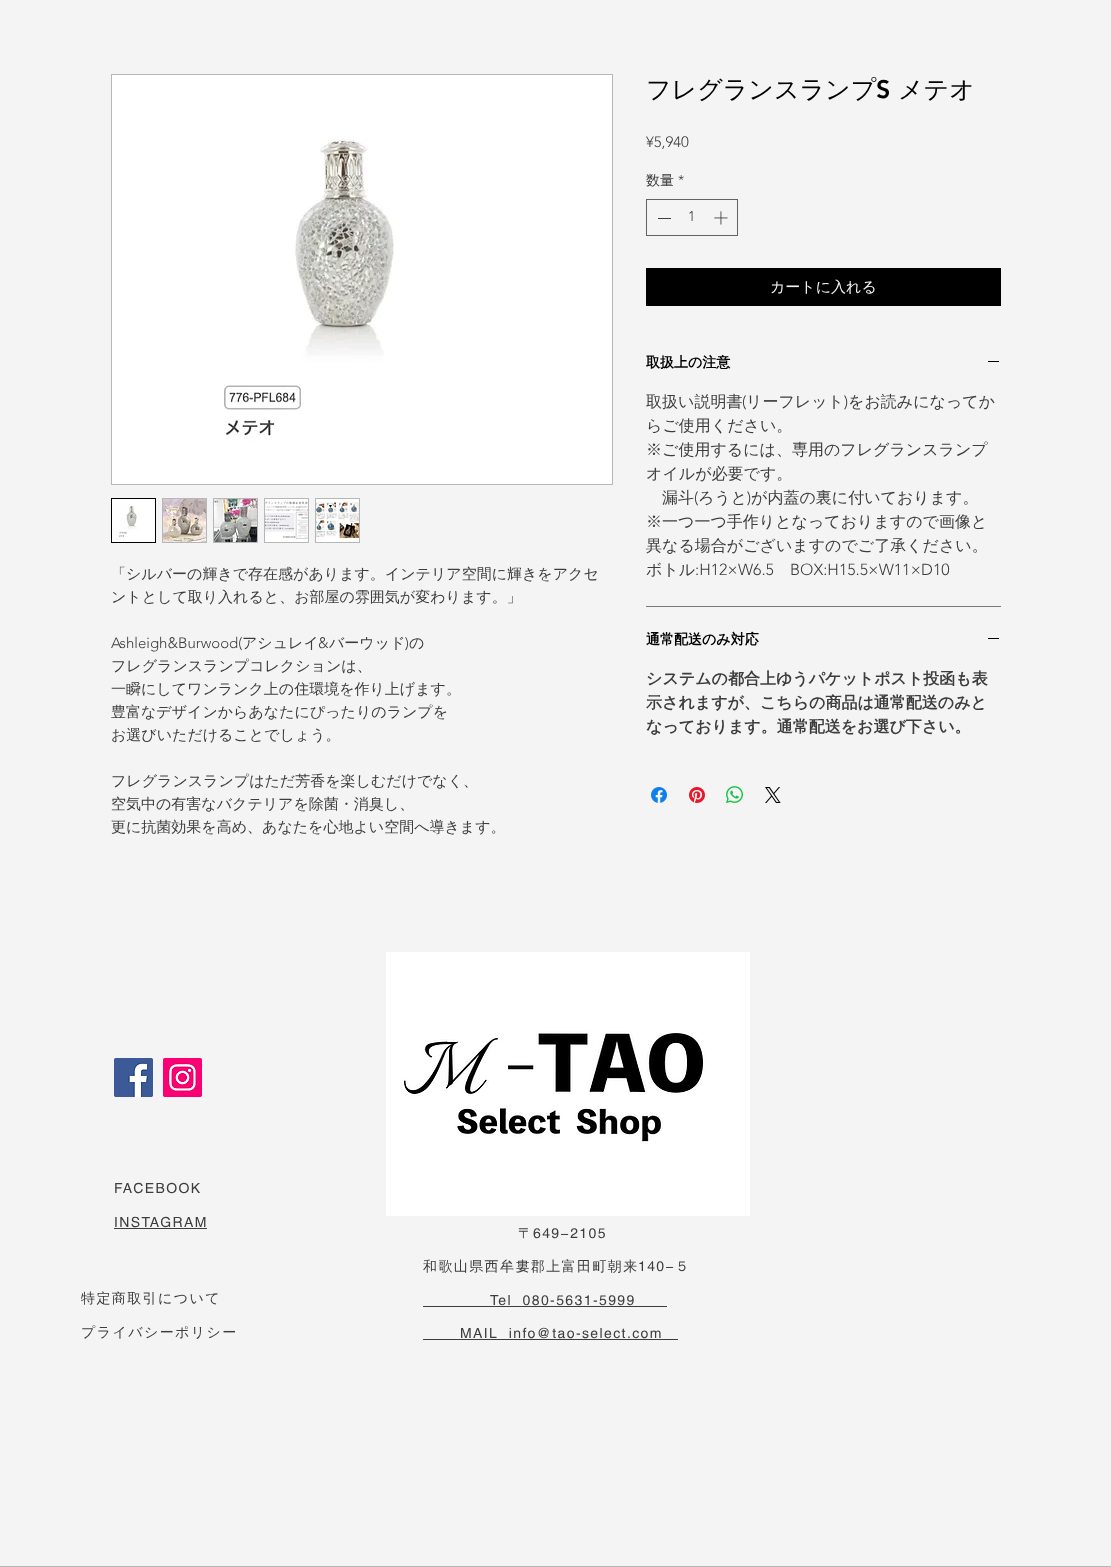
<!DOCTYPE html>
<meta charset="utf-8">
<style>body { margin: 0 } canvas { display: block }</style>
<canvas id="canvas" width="1111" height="1567"></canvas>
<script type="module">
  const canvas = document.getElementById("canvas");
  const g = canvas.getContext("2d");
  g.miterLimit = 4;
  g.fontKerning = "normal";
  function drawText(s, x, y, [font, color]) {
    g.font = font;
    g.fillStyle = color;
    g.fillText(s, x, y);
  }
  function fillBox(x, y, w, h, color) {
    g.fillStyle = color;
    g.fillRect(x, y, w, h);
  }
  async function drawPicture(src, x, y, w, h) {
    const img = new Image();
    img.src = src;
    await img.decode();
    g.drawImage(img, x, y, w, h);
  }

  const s1 = ["500 15px WenQuanYi Zen Hei", "#3D3D3D"];
  const s2 = ["300 15px 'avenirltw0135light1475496'", "#3D3D3D"];
  const s3 = ["500 25px WenQuanYi Zen Hei", "#000000"];
  const s4 = ["900 25px 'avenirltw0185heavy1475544'", "#000000"];
  const s5 = ["500 14px WenQuanYi Zen Hei", "#3D3D3D"];
  const s6 = ["300 14px 'avenirltw0135light1475496'", "#3D3D3D"];
  const s7 = ["500 15px WenQuanYi Zen Hei", "#F5F4F4"];
  const s8 = ["bold 14px WenQuanYi Zen Hei", "#000000"];
  const s9 = ["500 16px WenQuanYi Zen Hei", "#3D3D3D"];
  const s10 = ["300 16px 'avenirltw0135light1475496'", "#3D3D3D"];
  const s11 = ["bold 16px WenQuanYi Zen Hei", "#3D3D3D"];
  const s12 = ["14px helvetica", "#3D3D3D"];

  fillBox(0, 0, 1111, 1567, "#F5F4F4");
  g.strokeStyle = "#B8B7B7";
  g.strokeRect(111.5, 74.5, 501, 410);
  await drawPicture("pic1.png", 112, 75, 500, 409);
  g.strokeStyle = "#000000";
  g.strokeRect(111.5, 498.5, 44, 44);
  await drawPicture("pic2.png", 112, 499, 43, 43);
  g.strokeStyle = "#B8B7B7";
  g.strokeRect(162.5, 498.5, 44, 44);
  await drawPicture("pic3.png", 163, 499, 43, 43);
  g.strokeRect(213.5, 498.5, 44, 44);
  await drawPicture("pic4.png", 214, 499, 43, 43);
  g.strokeRect(264.5, 498.5, 44, 44);
  await drawPicture("pic5.png", 265, 499, 43, 43);
  g.strokeRect(315.5, 498.5, 44, 44);
  await drawPicture("pic6.png", 316, 499, 43, 43);
  drawText("「シルバーの輝きで存在感があります。インテリア空間に輝きをアクセ", 111, 579, s1);
  drawText("ントとして取り入れると、お部屋の雰囲気が変わります。」", 111, 602, s1);
  drawText("Ashleigh&Burwood(", 111, 648, s2);
  drawText("アシュレイ", 242, 648, s1);
  drawText("&", 318, 648, s2);
  drawText("バーウッド", 329, 648, s1);
  drawText(")", 405, 648, s2);
  drawText("の", 409, 648, s1);
  drawText("フレグランスランプコレクションは、", 111, 671, s1);
  drawText("一瞬にしてワンランク上の住環境を作り上げます。", 111, 694, s1);
  drawText("豊富なデザインからあなたにぴったりのランプを", 111, 717, s1);
  drawText("お選びいただけることでしょう。", 111, 740, s1);
  drawText("フレグランスランプはただ芳香を楽しむだけでなく、", 111, 786, s1);
  drawText("空気中の有害なバクテリアを除菌・消臭し、", 111, 809, s1);
  drawText("更に抗菌効果を高め、あなたを心地よい空間へ導きます。", 111, 832, s1);
  drawText("フレグランスランプ", 646, 98, s3);
  drawText("S", 876, 98, s4);
  drawText("メテオ", 898, 98, s3);
  drawText("¥5,940", 646, 147, s2);
  drawText("数量", 646, 185, s5);
  drawText("*", 678, 185, s6);
  g.strokeStyle = "#626262";
  g.strokeRect(646.5, 199.5, 91, 36);
  fillBox(658, 218, 13, 1, "#3D3D3D");
  drawText("1", 688, 221, s6);
  await drawPicture("pic7.png", 714, 211, 14, 14);
  fillBox(646, 268, 355, 38, "#000000");
  drawText("カートに入れる", 770, 292, s7);
  fillBox(646, 606, 355, 1, "#7B7A7A");
  drawText("取扱上の注意", 646, 367, s8);
  fillBox(988, 361, 11, 1, "#000000");
  drawText("取扱い説明書", 646, 407, s9);
  drawText("(", 742, 407, s10);
  drawText("リーフレット", 746, 407, s9);
  drawText(")", 844, 407, s10);
  drawText("をお読みになってか", 848, 407, s9);
  drawText("らご使用ください。", 646, 431, s9);
  drawText("※ご使用するには、専用のフレグランスランプ", 646, 455, s9);
  drawText("オイルが必要です。", 646, 479, s9);
  drawText("漏斗", 662, 503, s9);
  drawText("(", 694, 503, s10);
  drawText("ろうと", 698, 503, s9);
  drawText(")", 747, 503, s10);
  drawText("が内蓋の裏に付いております。", 751, 503, s9);
  drawText("※一つ一つ手作りとなっておりますので画像と", 646, 527, s9);
  drawText("異なる場合がございますのでご了承ください。", 646, 551, s9);
  drawText("ボトル", 646, 575, s9);
  drawText(":H12×W6.5", 695, 575, s10);
  drawText("BOX:H15.5×W11×D10", 790, 575, s10);
  drawText("通常配送のみ対応", 646, 644, s8);
  fillBox(988, 638, 11, 1, "#000000");
  drawText("システムの都合上ゆうパケットポスト投函も表", 646, 684, s11);
  drawText("示されますが、こちらの商品は通常配送のみと", 646, 708, s11);
  drawText("なっております。通常配送をお選び下さい。", 646, 732, s11);
  await drawPicture("pic8.png", 651, 787, 16, 16);
  await drawPicture("pic9.png", 689, 787, 16, 16);
  await drawPicture("pic10.png", 726, 786, 17, 17);
  await drawPicture("pic11.png", 765, 787, 16, 16);
  await drawPicture("pic12.png", 114, 1058, 39, 39);
  await drawPicture("pic13.png", 163, 1058, 39, 39);
  await drawPicture("pic14.png", 386, 952, 364, 264);
  g.letterSpacing = "1.4px";
  drawText("FACEBOOK", 114, 1193, s12);
  drawText("INSTAGRAM", 114, 1227, s12);
  fillBox(114, 1228, 93, 1, "#3D3D3D");
  drawText("特定商取引について", 81, 1303, s5);
  drawText("プライバシーポリシー", 81, 1337, s5);
  drawText("〒", 518, 1238, s5);
  drawText("649−2105", 533, 1238, s12);
  drawText("和歌山県西牟婁郡上富田町朝来", 423, 1271, s5);
  drawText("140−", 638, 1271, s12);
  drawText("５", 675, 1271, s5);
  drawText("Tel  080-5631-5999", 490, 1305, s12);
  fillBox(423, 1306, 244, 1, "#3D3D3D");
  drawText("MAIL  info@tao-select.com", 460, 1338, s12);
  fillBox(423, 1339, 255, 1, "#3D3D3D");
  fillBox(0, 1566, 1111, 1, "#B8B7B7");
</script>
